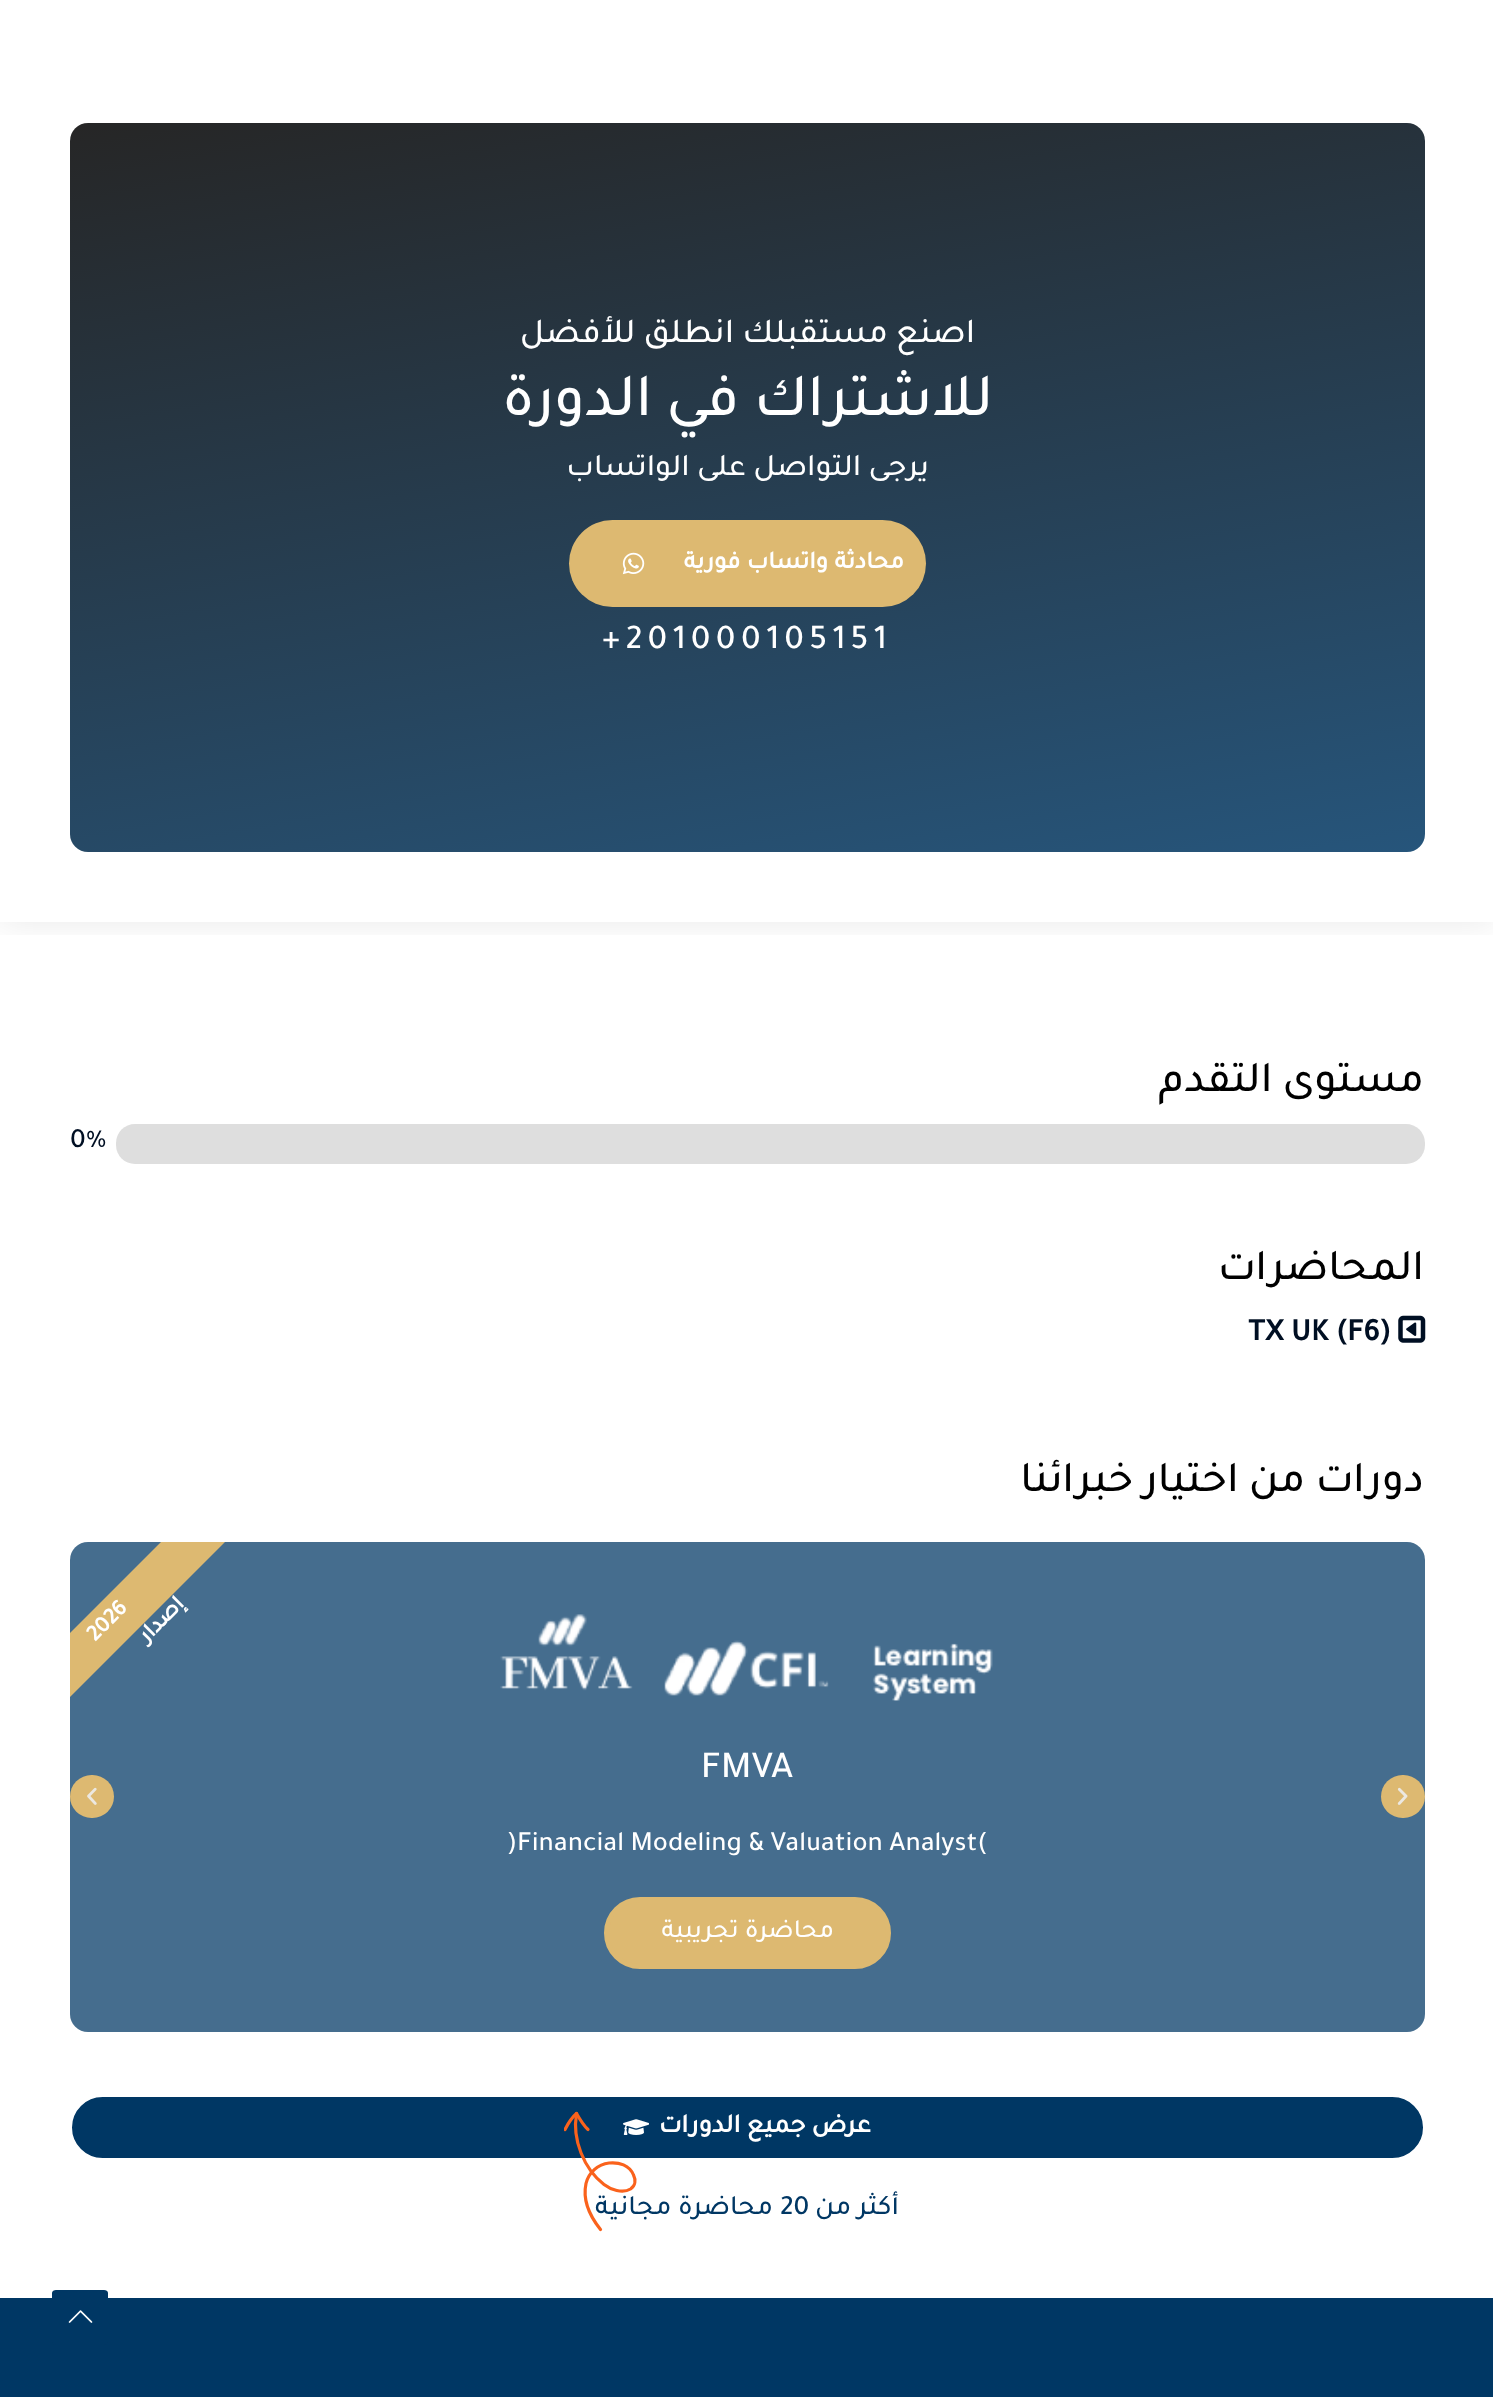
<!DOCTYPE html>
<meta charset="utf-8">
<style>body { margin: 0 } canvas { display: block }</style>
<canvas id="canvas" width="1493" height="2397"></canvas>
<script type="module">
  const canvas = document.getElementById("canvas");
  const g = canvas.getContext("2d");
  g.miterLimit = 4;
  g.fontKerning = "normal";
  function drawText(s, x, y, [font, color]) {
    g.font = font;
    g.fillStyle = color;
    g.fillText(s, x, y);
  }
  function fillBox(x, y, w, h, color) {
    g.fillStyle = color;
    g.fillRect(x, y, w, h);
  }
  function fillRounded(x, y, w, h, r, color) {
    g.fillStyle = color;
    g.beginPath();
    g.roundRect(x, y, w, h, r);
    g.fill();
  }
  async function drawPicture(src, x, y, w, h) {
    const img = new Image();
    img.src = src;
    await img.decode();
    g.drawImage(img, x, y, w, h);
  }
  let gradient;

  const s1 = ["500 35px Tajawal", "#FFFFFF"];
  const s2 = ["500 61.25px Tajawal", "#FFFFFF"];
  const s3 = ["500 31.5px Tajawal", "#FFFFFF"];
  const s4 = ["bold 24.5px Tajawal", "#FFFFFF"];
  const s5 = ["500 43.75px Tajawal", "#000000"];
  const s6 = ["500 28px Tajawal", "#000F23"];
  const s7 = ["bold 31.5px Tajawal", "#000F23"];
  const s8 = ["500 38.5px Tajawal", "#FFFFFF"];
  const s9 = ["500 28px Tajawal", "#FFFFFF"];
  const s10 = ["500 26.25px Tajawal", "#FFFFFF"];
  const s11 = ["bold 26.25px Tajawal", "#FFFFFF"];
  const s12 = ["500 28px Tajawal", "#003764"];

  fillBox(0, 0, 1493, 2397, "#FFFFFF");
  g.save();
  g.beginPath();
  g.rect(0, 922, 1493, 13);
  g.clip();
  g.fillStyle = "rgba(0, 0, 0, 0.09)";
  g.filter = "blur(17.5px)";
  g.beginPath();
  g.rect(0, -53, 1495, 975);
  g.fill();
  g.filter = "none";
  g.restore();
  gradient = g.createLinearGradient(664, 18, 830, 957);
  gradient.addColorStop(0, "#262626");
  gradient.addColorStop(1, "#26557B");
  g.fillStyle = gradient;
  g.beginPath();
  g.roundRect(70, 123, 1355, 729, 18);
  g.fill();
  g.direction = "rtl";
  drawText("اصنع", 975, 342, s1);
  drawText("مستقبلك", 888, 342, s1);
  drawText("انطلق للأفضل", 734, 342, s1);
  drawText("للاشتراك في الدورة", 993, 415, s2);
  drawText("يرجى التواصل على الواتساب", 929, 475, s3);
  fillRounded(569, 520, 357, 87, 43.5, "#DDB971");
  g.letterSpacing = "1.75px";
  g.wordSpacing = "-1px";
  drawText("محادثة واتساب فورية", 904, 568, s4);
  await drawPicture("pic1.png", 622, 552, 23, 23);
  g.letterSpacing = "5.25px";
  g.wordSpacing = "0px";
  g.direction = "ltr";
  drawText("+201000105151", 602, 648, s1);
  g.letterSpacing = "0px";
  g.direction = "rtl";
  drawText("مستوى التقدم", 1424, 1091, s5);
  fillRounded(116, 1124, 1309, 40, 19, "#DEDEDE");
  g.direction = "ltr";
  drawText("0%", 70, 1147, s6);
  g.direction = "rtl";
  drawText("المحاضرات", 1424, 1279, s5);
  await drawPicture("pic2.png", 1398, 1315, 28, 28);
  g.direction = "ltr";
  drawText("TX UK (F6)", 1248, 1340, s7);
  g.direction = "rtl";
  drawText("دورات من اختيار خبرائنا", 1424, 1491, s5);
  fillRounded(70, 1542, 1355, 490, 18, "#456D8E");
  g.fillStyle = "#DDB971";
  g.beginPath();
  g.moveTo(225, 1542);
  g.lineTo(70, 1697);
  g.lineTo(70, 1633);
  g.lineTo(161, 1542);
  g.closePath();
  g.fill();
  g.font = "bold 23px Tajawal";
  g.fillStyle = "#FFFFFF";
  g.save();
  g.translate(185, 1605);
  g.rotate(-45 * Math.PI / 180);
  g.fillText("إصدار", 0, 0);
  g.restore();
  g.direction = "ltr";
  g.save();
  g.translate(95, 1642);
  g.rotate(-45 * Math.PI / 180);
  g.fillText("2026", 0, 0);
  g.restore();
  await drawPicture("pic3.png", 500, 1614, 493, 87);
  drawText("FMVA", 701, 1777, s8);
  drawText(")Financial Modeling & Valuation Analyst(", 507, 1850, s9);
  g.fillStyle = "#DDB971";
  g.beginPath();
  g.roundRect(606.5, 1899.5, 282, 67, 33.5);
  g.fill();
  g.strokeStyle = "#DDB971";
  g.lineWidth = 5;
  g.stroke();
  g.direction = "rtl";
  drawText("محاضرة تجريبية", 834, 1937, s10);
  fillRounded(1381, 1775, 44, 43, 21.5, "#DDB971");
  await drawPicture("pic4.png", 1397, 1787, 11, 18);
  fillRounded(70, 1775, 44, 43, 21.5, "#DDB971");
  await drawPicture("pic5.png", 87, 1787, 10, 18);
  g.fillStyle = "#003764";
  g.beginPath();
  g.roundRect(71, 2096, 1353, 63, 31.5);
  g.fill();
  g.strokeStyle = "#FFFFFF";
  g.lineWidth = 2;
  g.stroke();
  drawText("عرض جميع الدورات", 871, 2132, s11);
  await drawPicture("pic6.png", 623, 2119, 26, 16);
  g.beginPath();
  g.moveTo(600.5, 2229.5);
  g.bezierCurveTo(590.5, 2217, 582.5, 2200, 586, 2183.5);
  g.bezierCurveTo(588.5, 2173, 598, 2164, 609, 2163);
  g.bezierCurveTo(619, 2162, 629.5, 2165, 633.5, 2175);
  g.bezierCurveTo(636, 2180, 635.5, 2185.5, 630.5, 2189);
  g.bezierCurveTo(622.5, 2194, 610.5, 2189.5, 604, 2184.5);
  g.bezierCurveTo(584, 2169, 572, 2139.5, 576.5, 2114);
  g.strokeStyle = "#FA621C";
  g.lineWidth = 3.2;
  g.lineCap = "round";
  g.stroke();
  g.save();
  g.beginPath();
  g.rect(564, 2112, 73, 119);
  g.clip();
  g.beginPath();
  g.moveTo(565, 2129.5);
  g.bezierCurveTo(567, 2125.5, 572.5, 2117, 576.5, 2113.5);
  g.stroke();
  g.restore();
  g.beginPath();
  g.moveTo(576.5, 2113.5);
  g.bezierCurveTo(578.5, 2117, 584, 2126, 588, 2129.5);
  g.stroke();
  drawText("أكثر من", 899, 2214, s12);
  g.direction = "ltr";
  drawText("20", 780, 2214, s12);
  g.direction = "rtl";
  drawText("محاضرة مجانية", 773, 2214, s12);
  fillBox(0, 2298, 1493, 99, "#003764");
  g.beginPath();
  g.moveTo(104, 2345);
  g.lineTo(56, 2345);
  g.bezierCurveTo(54, 2345, 52, 2343, 52, 2342);
  g.lineTo(52, 2293);
  g.bezierCurveTo(52, 2291, 54, 2290, 56, 2290);
  g.lineTo(104, 2290);
  g.bezierCurveTo(106, 2290, 108, 2291, 108, 2293);
  g.lineTo(108, 2342);
  g.bezierCurveTo(108, 2343, 106, 2345, 104, 2345);
  g.closePath();
  g.fill();
  await drawPicture("pic7.png", 68, 2310, 25, 13);
</script>
